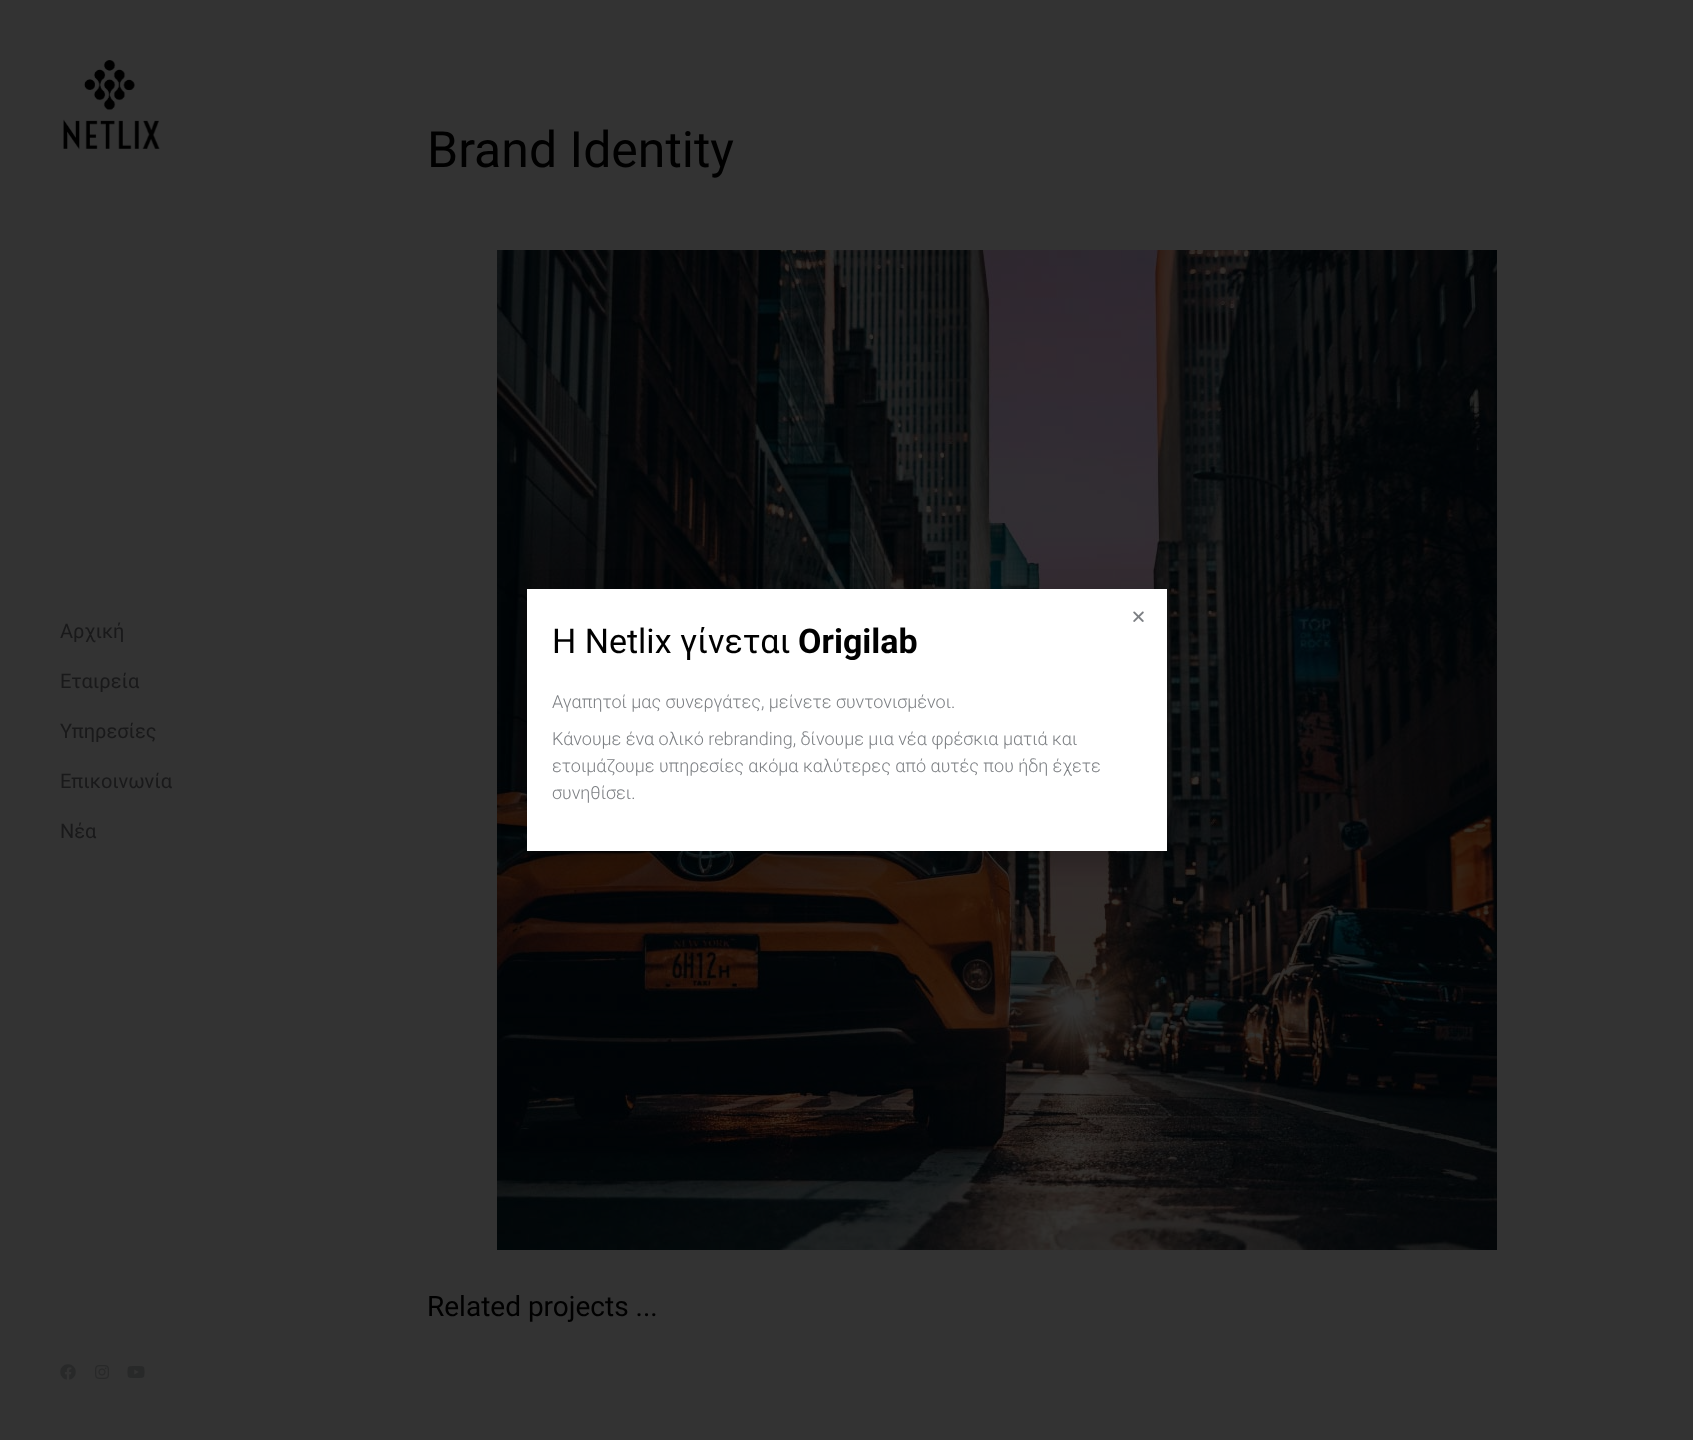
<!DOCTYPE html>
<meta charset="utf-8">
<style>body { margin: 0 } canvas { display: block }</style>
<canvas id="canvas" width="1693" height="1440"></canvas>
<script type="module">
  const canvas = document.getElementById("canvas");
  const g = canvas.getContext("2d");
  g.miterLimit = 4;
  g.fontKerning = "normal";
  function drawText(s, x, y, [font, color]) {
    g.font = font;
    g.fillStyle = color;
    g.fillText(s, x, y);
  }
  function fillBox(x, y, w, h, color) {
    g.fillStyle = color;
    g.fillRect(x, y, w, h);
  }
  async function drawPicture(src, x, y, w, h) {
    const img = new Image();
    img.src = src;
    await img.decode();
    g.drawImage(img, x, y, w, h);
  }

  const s1 = ["20px Roboto", "#19191A"];
  const s2 = ["50px Roboto", "#000000"];
  const s3 = ["28px Roboto", "#000000"];
  const s4 = ["34px Roboto", "#000000"];
  const s5 = ["bold 34px Roboto", "#000000"];
  const s6 = ["300 18px Roboto", "#7C7F83"];

  fillBox(0, 0, 1693, 1440, "#333333");
  await drawPicture("pic1.png", 63, 60, 97, 90);
  drawText("Αρχική", 60, 638, s1);
  drawText("Εταιρεία", 60, 688, s1);
  drawText("Υπηρεσίες", 60, 738, s1);
  drawText("Επικοινωνία", 60, 788, s1);
  drawText("Νέα", 60, 838, s1);
  await drawPicture("pic2.png", 60, 1364, 16, 16);
  await drawPicture("pic3.png", 95, 1365, 14, 14);
  await drawPicture("pic4.png", 127, 1366, 18, 12);
  drawText("Brand Identity", 427, 167, s2);
  await drawPicture("pic5.png", 497, 250, 1000, 1000);
  drawText("Related projects ...", 427, 1316, s3);
  g.fillStyle = "rgba(0, 0, 0, 0.2)";
  g.filter = "blur(11.5px)";
  g.beginPath();
  g.rect(526, 594, 646, 268);
  g.fill();
  g.filter = "none";
  fillBox(527, 589, 640, 262, "#FFFFFF");
  await drawPicture("pic6.png", 1133, 611, 11, 11);
  drawText("Η Netlix γίνεται", 552, 653, s4);
  drawText("Origilab", 798, 653, s5);
  drawText("Αγαπητοί μας συνεργάτες, μείνετε συντονισμένοι.", 552, 708, s6);
  drawText("Κάνουμε ένα ολικό rebranding, δίνουμε μια νέα φρέσκια ματιά και", 552, 745, s6);
  drawText("ετοιμάζουμε υπηρεσίες ακόμα καλύτερες από αυτές που ήδη έχετε", 552, 772, s6);
  drawText("συνηθίσει.", 552, 799, s6);
</script>
